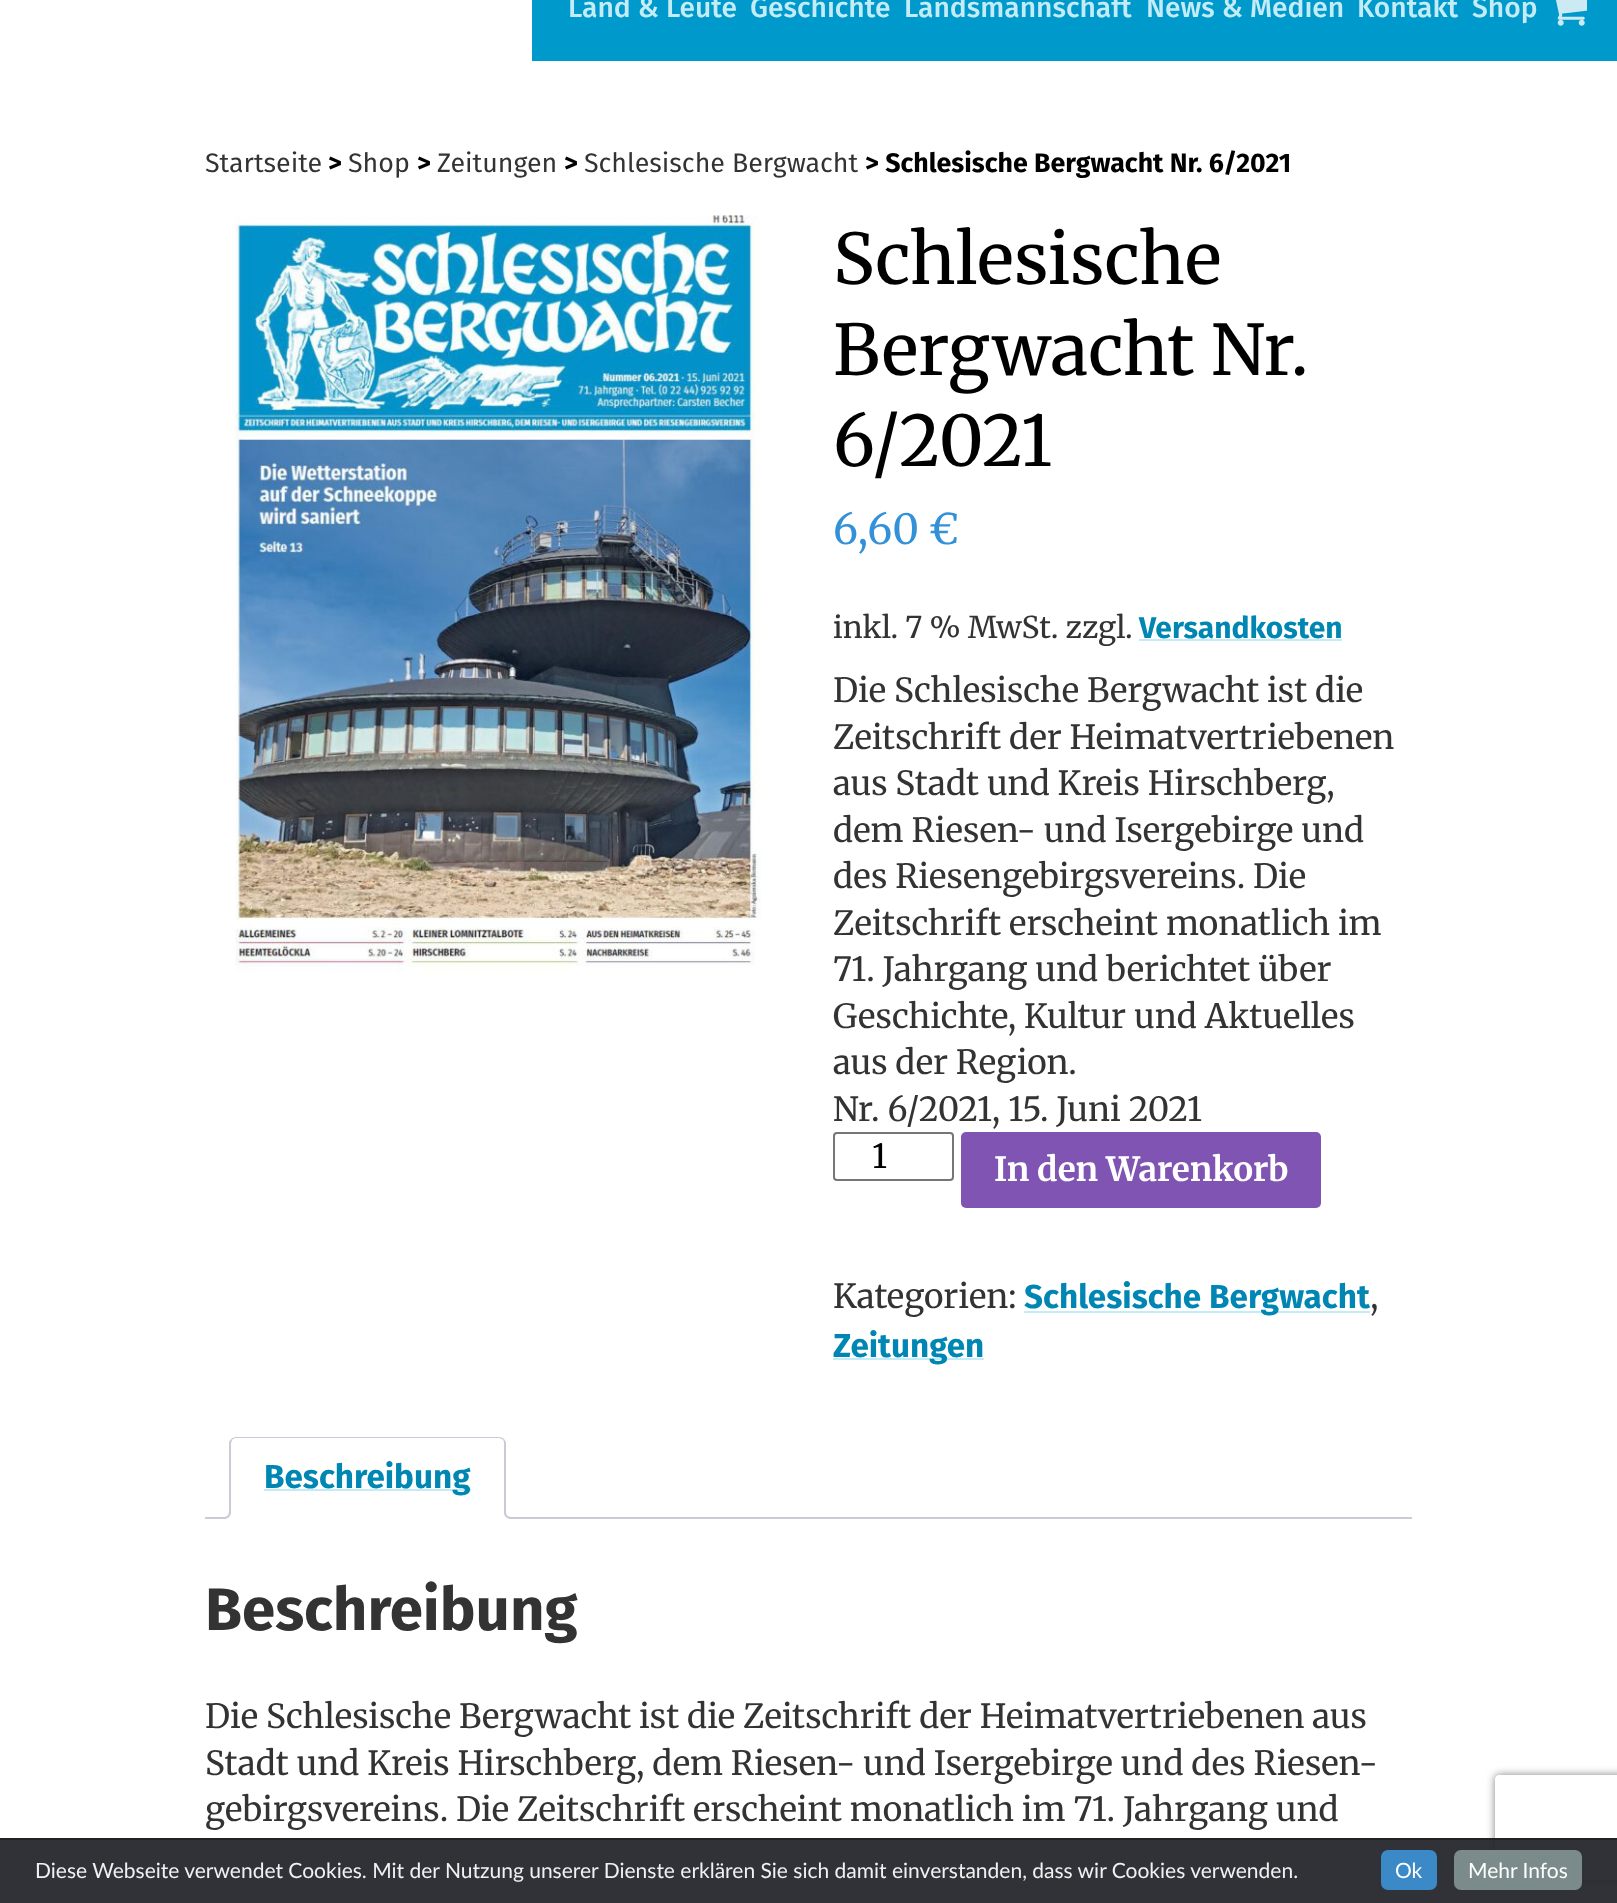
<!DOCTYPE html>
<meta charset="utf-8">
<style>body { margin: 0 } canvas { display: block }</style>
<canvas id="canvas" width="1617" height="1903"></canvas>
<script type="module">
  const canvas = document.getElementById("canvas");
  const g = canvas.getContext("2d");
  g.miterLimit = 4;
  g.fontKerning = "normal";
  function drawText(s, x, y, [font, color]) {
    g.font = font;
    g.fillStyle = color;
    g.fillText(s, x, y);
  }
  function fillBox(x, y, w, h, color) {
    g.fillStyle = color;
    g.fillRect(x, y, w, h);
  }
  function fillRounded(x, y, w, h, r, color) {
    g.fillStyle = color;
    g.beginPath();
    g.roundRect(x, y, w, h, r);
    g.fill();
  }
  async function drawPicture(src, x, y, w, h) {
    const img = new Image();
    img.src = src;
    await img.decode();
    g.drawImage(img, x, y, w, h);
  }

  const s1 = ["500 28.25px Fira Sans", "#C4ECF6"];
  const s2 = ["26.75px Fira Sans", "#333333"];
  const s3 = ["bold 26.75px Fira Sans", "#000000"];
  const s4 = ["69.75px Merriweather", "#000000"];
  const s5 = ["41.5px Merriweather", "#3391D8"];
  const s6 = ["30px Merriweather", "#333333"];
  const s7 = ["bold 30px Fira Sans", "#0086B3"];
  const s8 = ["33.25px Merriweather", "#333333"];
  const s9 = ["33.25px Merriweather", "#000000"];
  const s10 = ["bold 33.25px Merriweather", "#FFFFFF"];
  const s11 = ["bold 33.25px Fira Sans", "#0086B3"];
  const s12 = ["bold 60px Fira Sans", "#333333"];
  const s13 = ["21px Lato", "#F1F1F3"];
  const s14 = ["21px Lato", "#FFFFFF"];

  fillBox(0, 0, 1617, 1903, "#FFFFFF");
  fillBox(532, 0, 1085, 61, "#0099CC");
  drawText("Land & Leute", 568, 17, s1);
  drawText("Geschichte", 750, 17, s1);
  drawText("Landsmannschaft", 904, 17, s1);
  drawText("News & Medien", 1146, 17, s1);
  drawText("Kontakt", 1357, 17, s1);
  drawText("Shop", 1472, 17, s1);
  await drawPicture("pic1.png", 1556, 0, 31, 26);
  drawText("Startseite", 205, 172, s2);
  drawText(">", 328, 172, s3);
  drawText("Shop", 348, 172, s2);
  drawText(">", 417, 172, s3);
  drawText("Zeitungen", 437, 172, s2);
  drawText(">", 564, 172, s3);
  drawText("Schlesische Bergwacht", 584, 172, s2);
  drawText("> Schlesische Bergwacht Nr. 6/2021", 865, 172, s3);
  await drawPicture("pic2.png", 235, 215, 526, 759);
  drawText("Schlesische", 833, 284, s4);
  drawText("Bergwacht Nr.", 833, 375, s4);
  drawText("6/2021", 833, 466, s4);
  drawText("6,60 €", 833, 544, s5);
  drawText("inkl. 7 % MwSt. zzgl.", 833, 638, s6);
  drawText("Versandkosten", 1139, 638, s7);
  fillBox(1139, 639, 203, 2, "#C4ECF6");
  drawText("Die Schlesische Bergwacht ist die", 833, 702, s8);
  drawText("Zeitschrift der Heimatvertriebenen", 833, 749, s8);
  drawText("aus Stadt und Kreis Hirschberg,", 833, 795, s8);
  drawText("dem Riesen- und Isergebirge und", 833, 842, s8);
  drawText("des Riesengebirgsvereins. Die", 833, 888, s8);
  drawText("Zeitschrift erscheint monatlich im", 833, 935, s8);
  drawText("71. Jahrgang und berichtet über", 833, 981, s8);
  drawText("Geschichte, Kultur und Aktuelles", 833, 1028, s8);
  drawText("aus der Region.", 833, 1074, s8);
  drawText("Nr. 6/2021, 15. Juni 2021", 833, 1121, s8);
  g.beginPath();
  g.roundRect(834, 1133, 119, 47, 3);
  g.strokeStyle = "#767676";
  g.lineWidth = 2;
  g.stroke();
  drawText("1", 872, 1168, s9);
  fillRounded(961, 1132, 360, 76, 5, "#7F54B3");
  drawText("In den Warenkorb", 994, 1181, s10);
  drawText("Kategorien:", 833, 1308, s8);
  fillBox(1024, 1311, 346, 2, "#C4ECF6");
  drawText("Schlesische Bergwacht", 1024, 1308, s11);
  drawText(",", 1370, 1308, s8);
  fillBox(833, 1358, 151, 2, "#C4ECF6");
  drawText("Zeitungen", 833, 1357, s11);
  fillBox(205, 1517, 1207, 2, "#CFC8D8");
  g.fillStyle = "#FFFFFF";
  g.beginPath();
  g.roundRect(229, 1437, 277, 82, [7, 7, 0, 0]);
  g.fill();
  g.fillStyle = "#CFC8D8";
  g.beginPath();
  g.moveTo(236, 1437);
  g.bezierCurveTo(234, 1437, 232, 1438, 231, 1439);
  g.lineTo(232, 1440);
  g.bezierCurveTo(233, 1439, 234, 1438, 236, 1438);
  g.lineTo(499, 1438);
  g.bezierCurveTo(500, 1438, 502, 1439, 503, 1440);
  g.lineTo(504, 1439);
  g.bezierCurveTo(503, 1438, 501, 1437, 499, 1437);
  g.closePath();
  g.fill();
  g.beginPath();
  g.moveTo(504, 1439);
  g.lineTo(506, 1442);
  g.lineTo(506, 1519);
  g.lineTo(504, 1517);
  g.lineTo(504, 1444);
  g.bezierCurveTo(504, 1442, 504, 1441, 503, 1440);
  g.closePath();
  g.fill();
  g.fillStyle = "#FFFFFF";
  g.beginPath();
  g.moveTo(506, 1519);
  g.lineTo(504, 1517);
  g.lineTo(231, 1517);
  g.lineTo(229, 1519);
  g.closePath();
  g.fill();
  g.fillStyle = "#CFC8D8";
  g.beginPath();
  g.moveTo(229, 1519);
  g.lineTo(231, 1517);
  g.lineTo(231, 1444);
  g.bezierCurveTo(231, 1442, 232, 1441, 232, 1440);
  g.lineTo(231, 1439);
  g.lineTo(229, 1442);
  g.closePath();
  g.fill();
  fillBox(264, 1489, 207, 2, "#C4ECF6");
  drawText("Beschreibung", 264, 1488, s11);
  g.save();
  g.beginPath();
  g.rect(205, 1437, 1207, 82);
  g.clip();
  g.fillStyle = "#FFFFFF";
  g.beginPath();
  g.moveTo(226, 1518.5);
  g.lineTo(226, 1523);
  g.bezierCurveTo(232.5, 1523, 235, 1520.5, 235, 1514);
  g.lineTo(230.5, 1514);
  g.bezierCurveTo(230, 1516.5, 228.5, 1518, 226, 1518.5);
  g.closePath();
  g.fill();
  g.restore();
  g.fillStyle = "#CFC8D8";
  g.beginPath();
  g.moveTo(222, 1510);
  g.lineTo(231, 1510);
  g.bezierCurveTo(231, 1516.5, 228.5, 1519, 222, 1519);
  g.closePath();
  g.moveTo(222, 1510);
  g.lineTo(229, 1510);
  g.bezierCurveTo(229, 1515.5, 227.5, 1517, 222, 1517);
  g.closePath();
  g.fill("evenodd");
  g.save();
  g.beginPath();
  g.rect(205, 1437, 1207, 82);
  g.clip();
  g.fillStyle = "#FFFFFF";
  g.beginPath();
  g.moveTo(501, 1514);
  g.bezierCurveTo(501, 1519.5, 503, 1523, 509, 1523);
  g.lineTo(509, 1518.5);
  g.bezierCurveTo(506.5, 1518, 505, 1516.5, 504.5, 1514);
  g.closePath();
  g.fill();
  g.restore();
  g.beginPath();
  g.moveTo(504, 1510);
  g.lineTo(513, 1510);
  g.lineTo(513, 1519);
  g.bezierCurveTo(508.5, 1519, 504, 1517.5, 504, 1512);
  g.closePath();
  g.moveTo(506, 1510);
  g.lineTo(513, 1510);
  g.lineTo(513, 1517);
  g.bezierCurveTo(509.5, 1517, 506, 1516.5, 506, 1512);
  g.closePath();
  g.fill("evenodd");
  drawText("Beschreibung", 205, 1630, s12);
  drawText("Die Schlesische Bergwacht ist die Zeitschrift der Heimatvertriebenen aus", 205, 1728, s8);
  drawText("Stadt und Kreis Hirschberg, dem Riesen- und Isergebirge und des Riesen-", 205, 1775, s8);
  drawText("gebirgsvereins. Die Zeitschrift erscheint monatlich im 71. Jahrgang und", 205, 1821, s8);
  g.save();
  g.beginPath();
  g.moveTo(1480, 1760);
  g.lineTo(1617, 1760);
  g.lineTo(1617, 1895);
  g.lineTo(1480, 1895);
  g.closePath();
  g.moveTo(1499, 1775);
  g.lineTo(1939, 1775);
  g.bezierCurveTo(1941, 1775, 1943, 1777, 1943, 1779);
  g.lineTo(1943, 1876);
  g.bezierCurveTo(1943, 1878, 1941, 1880, 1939, 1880);
  g.lineTo(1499, 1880);
  g.bezierCurveTo(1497, 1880, 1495, 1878, 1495, 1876);
  g.lineTo(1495, 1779);
  g.bezierCurveTo(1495, 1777, 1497, 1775, 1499, 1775);
  g.closePath();
  g.clip("evenodd");
  g.fillStyle = "#808080";
  g.filter = "blur(4.5px)";
  g.beginPath();
  g.roundRect(1495, 1775, 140, 105, 4);
  g.fill();
  g.filter = "none";
  g.restore();
  fillBox(0, 1840, 1617, 63, "rgba(50, 58, 69, 0.7)");
  fillBox(0, 1838, 1617, 2, "#202226");
  fillBox(0, 1840, 1617, 63, "rgba(32, 34, 38, 0.8)");
  drawText("Diese Webseite verwendet Cookies. Mit der Nutzung unserer Dienste erklären Sie sich damit einverstanden, dass wir Cookies verwenden.", 35, 1878, s13);
  fillRounded(1381, 1850, 56, 40, 7, "#3B89C7");
  drawText("Ok", 1395, 1878, s14);
  fillRounded(1454, 1850, 128, 40, 7, "#7B8A8B");
  drawText("Mehr Infos", 1468, 1878, s14);
</script>
